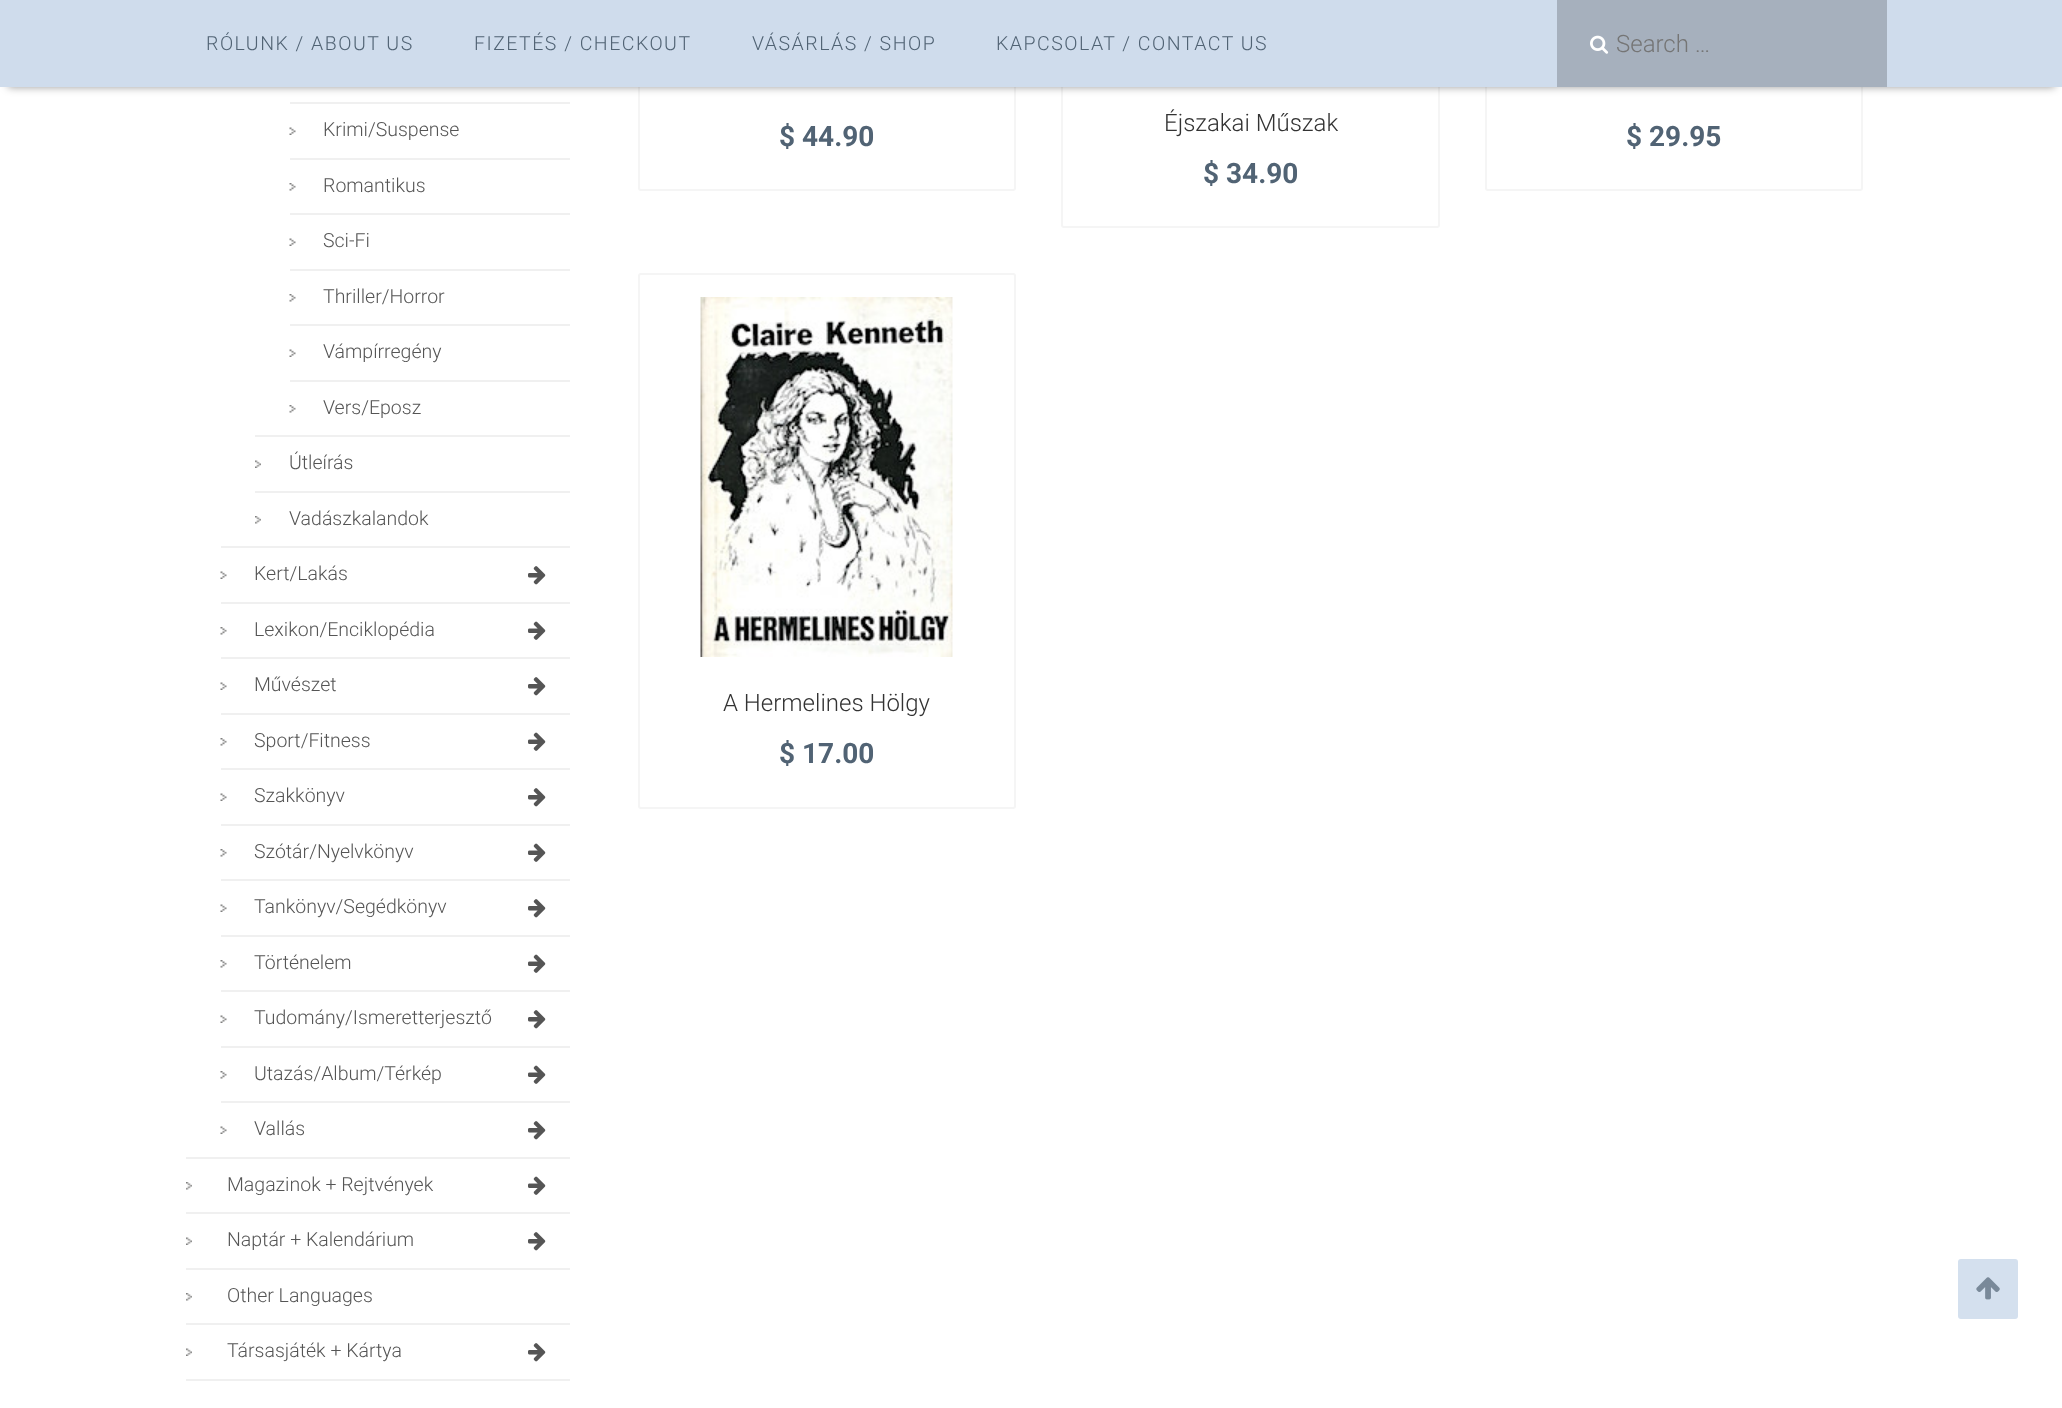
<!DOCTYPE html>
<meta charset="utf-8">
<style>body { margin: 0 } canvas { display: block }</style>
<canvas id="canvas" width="2062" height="1408"></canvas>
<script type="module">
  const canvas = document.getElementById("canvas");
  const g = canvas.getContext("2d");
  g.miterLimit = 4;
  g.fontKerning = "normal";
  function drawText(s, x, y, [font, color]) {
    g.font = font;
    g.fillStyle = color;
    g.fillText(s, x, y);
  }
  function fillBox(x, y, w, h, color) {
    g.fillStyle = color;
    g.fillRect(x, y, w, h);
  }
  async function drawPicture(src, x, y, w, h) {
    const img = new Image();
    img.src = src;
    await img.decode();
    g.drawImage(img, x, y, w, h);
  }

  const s1 = ["300 19.5px Roboto", "#516374"];
  const s2 = ["300 24px Roboto", "#757575"];
  const s3 = ["300 19.5px Roboto", "#555555"];
  const s4 = ["bold 28px Roboto", "#516374"];
  const s5 = ["300 24px Roboto", "#333333"];

  fillBox(0, 0, 2062, 1408, "#FFFFFF");
  g.beginPath();
  g.roundRect(639, -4, 376, 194, 2);
  g.strokeStyle = "#F5F5F5";
  g.lineWidth = 2;
  g.stroke();
  g.beginPath();
  g.roundRect(1062, -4, 377, 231, 2);
  g.stroke();
  g.beginPath();
  g.roundRect(1486, -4, 376, 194, 2);
  g.stroke();
  g.fillStyle = "rgba(0, 0, 0, 0.4)";
  g.filter = "blur(4px)";
  g.beginPath();
  g.rect(8, 15, 2047, 72);
  g.fill();
  g.filter = "none";
  fillBox(0, 0, 2062, 87, "#CFDCEC");
  g.letterSpacing = "1.5px";
  drawText("RÓLUNK / ABOUT US", 206, 50, s1);
  drawText("FIZETÉS / CHECKOUT", 474, 50, s1);
  drawText("VÁSÁRLÁS / SHOP", 752, 50, s1);
  drawText("KAPCSOLAT / CONTACT US", 996, 50, s1);
  fillBox(1557, 0, 330, 87, "#A6B0BD");
  await drawPicture("pic1.png", 1590, 35, 19, 19);
  g.letterSpacing = "0px";
  drawText("Search …", 1616, 52, s2);
  fillBox(186, 1157, 384, 2, "#F0F0F0");
  fillBox(221, 546, 349, 2, "#F0F0F0");
  fillBox(255, 435, 315, 2, "#F0F0F0");
  fillBox(290, 102, 280, 2, "#F0F0F0");
  await drawPicture("pic2.png", 289, 127, 7, 8);
  fillBox(290, 158, 280, 2, "#F0F0F0");
  drawText("Krimi/Suspense", 323, 136, s3);
  await drawPicture("pic3.png", 289, 183, 7, 8);
  fillBox(290, 213, 280, 2, "#F0F0F0");
  drawText("Romantikus", 323, 192, s3);
  await drawPicture("pic2.png", 289, 238, 7, 8);
  fillBox(290, 269, 280, 2, "#F0F0F0");
  drawText("Sci-Fi", 323, 247, s3);
  await drawPicture("pic3.png", 289, 294, 7, 8);
  fillBox(290, 324, 280, 2, "#F0F0F0");
  drawText("Thriller/Horror", 323, 303, s3);
  await drawPicture("pic2.png", 289, 349, 7, 8);
  fillBox(290, 380, 280, 2, "#F0F0F0");
  drawText("Vámpírregény", 323, 358, s3);
  await drawPicture("pic3.png", 289, 405, 7, 8);
  drawText("Vers/Eposz", 323, 414, s3);
  await drawPicture("pic4.png", 255, 460, 6, 8);
  fillBox(255, 491, 315, 2, "#F0F0F0");
  drawText("Útleírás", 289, 469, s3);
  await drawPicture("pic5.png", 255, 516, 6, 8);
  drawText("Vadászkalandok", 289, 525, s3);
  await drawPicture("pic2.png", 220, 571, 7, 8);
  fillBox(221, 602, 349, 2, "#F0F0F0");
  drawText("Kert/Lakás", 254, 580, s3);
  await drawPicture("pic6.png", 528, 566, 18, 19);
  await drawPicture("pic3.png", 220, 627, 7, 8);
  fillBox(221, 657, 349, 2, "#F0F0F0");
  drawText("Lexikon/Enciklopédia", 254, 636, s3);
  await drawPicture("pic7.png", 528, 621, 18, 19);
  await drawPicture("pic2.png", 220, 682, 7, 8);
  fillBox(221, 713, 349, 2, "#F0F0F0");
  drawText("Művészet", 254, 691, s3);
  await drawPicture("pic6.png", 528, 677, 18, 19);
  await drawPicture("pic3.png", 220, 738, 7, 8);
  fillBox(221, 768, 349, 2, "#F0F0F0");
  drawText("Sport/Fitness", 254, 747, s3);
  await drawPicture("pic7.png", 528, 732, 18, 19);
  await drawPicture("pic2.png", 220, 793, 7, 8);
  fillBox(221, 824, 349, 2, "#F0F0F0");
  drawText("Szakkönyv", 254, 802, s3);
  await drawPicture("pic6.png", 528, 788, 18, 19);
  await drawPicture("pic3.png", 220, 849, 7, 8);
  fillBox(221, 879, 349, 2, "#F0F0F0");
  drawText("Szótár/Nyelvkönyv", 254, 858, s3);
  await drawPicture("pic7.png", 528, 843, 18, 19);
  await drawPicture("pic2.png", 220, 904, 7, 8);
  fillBox(221, 935, 349, 2, "#F0F0F0");
  drawText("Tankönyv/Segédkönyv", 254, 913, s3);
  await drawPicture("pic6.png", 528, 899, 18, 19);
  await drawPicture("pic3.png", 220, 960, 7, 8);
  fillBox(221, 990, 349, 2, "#F0F0F0");
  drawText("Történelem", 254, 969, s3);
  await drawPicture("pic7.png", 528, 954, 18, 19);
  await drawPicture("pic2.png", 220, 1015, 7, 8);
  fillBox(221, 1046, 349, 2, "#F0F0F0");
  drawText("Tudomány/Ismeretterjesztő", 254, 1024, s3);
  await drawPicture("pic6.png", 528, 1010, 18, 19);
  await drawPicture("pic3.png", 220, 1071, 7, 8);
  fillBox(221, 1101, 349, 2, "#F0F0F0");
  drawText("Utazás/Album/Térkép", 254, 1080, s3);
  await drawPicture("pic7.png", 528, 1065, 18, 19);
  await drawPicture("pic2.png", 220, 1126, 7, 8);
  drawText("Vallás", 254, 1135, s3);
  await drawPicture("pic6.png", 528, 1121, 18, 19);
  await drawPicture("pic5.png", 186, 1182, 6, 8);
  fillBox(186, 1212, 384, 2, "#F0F0F0");
  drawText("Magazinok + Rejtvények", 227, 1191, s3);
  await drawPicture("pic7.png", 528, 1176, 18, 19);
  await drawPicture("pic4.png", 186, 1237, 6, 8);
  fillBox(186, 1268, 384, 2, "#F0F0F0");
  drawText("Naptár + Kalendárium", 227, 1246, s3);
  await drawPicture("pic6.png", 528, 1232, 18, 19);
  await drawPicture("pic5.png", 186, 1293, 6, 8);
  fillBox(186, 1323, 384, 2, "#F0F0F0");
  drawText("Other Languages", 227, 1302, s3);
  await drawPicture("pic4.png", 186, 1348, 6, 8);
  fillBox(186, 1379, 384, 2, "#F0F0F0");
  drawText("Társasjáték + Kártya", 227, 1357, s3);
  await drawPicture("pic6.png", 528, 1343, 18, 19);
  drawText("$ 44.90", 779, 146, s4);
  drawText("Éjszakai Műszak", 1164, 131, s5);
  drawText("$ 34.90", 1203, 183, s4);
  drawText("$ 29.95", 1626, 146, s4);
  g.beginPath();
  g.roundRect(639, 274, 376, 534, 2);
  g.stroke();
  await drawPicture("pic8.png", 700, 297, 253, 360);
  drawText("A Hermelines Hölgy", 723, 711, s5);
  drawText("$ 17.00", 779, 763, s4);
  g.fillStyle = "#D4E0EE";
  g.beginPath();
  g.roundRect(1959.5, 1260.5, 57, 57, 1.5);
  g.fill();
  g.strokeStyle = "#D4E0EE";
  g.lineWidth = 3;
  g.stroke();
  await drawPicture("pic9.png", 1976, 1277, 24, 23);
</script>
